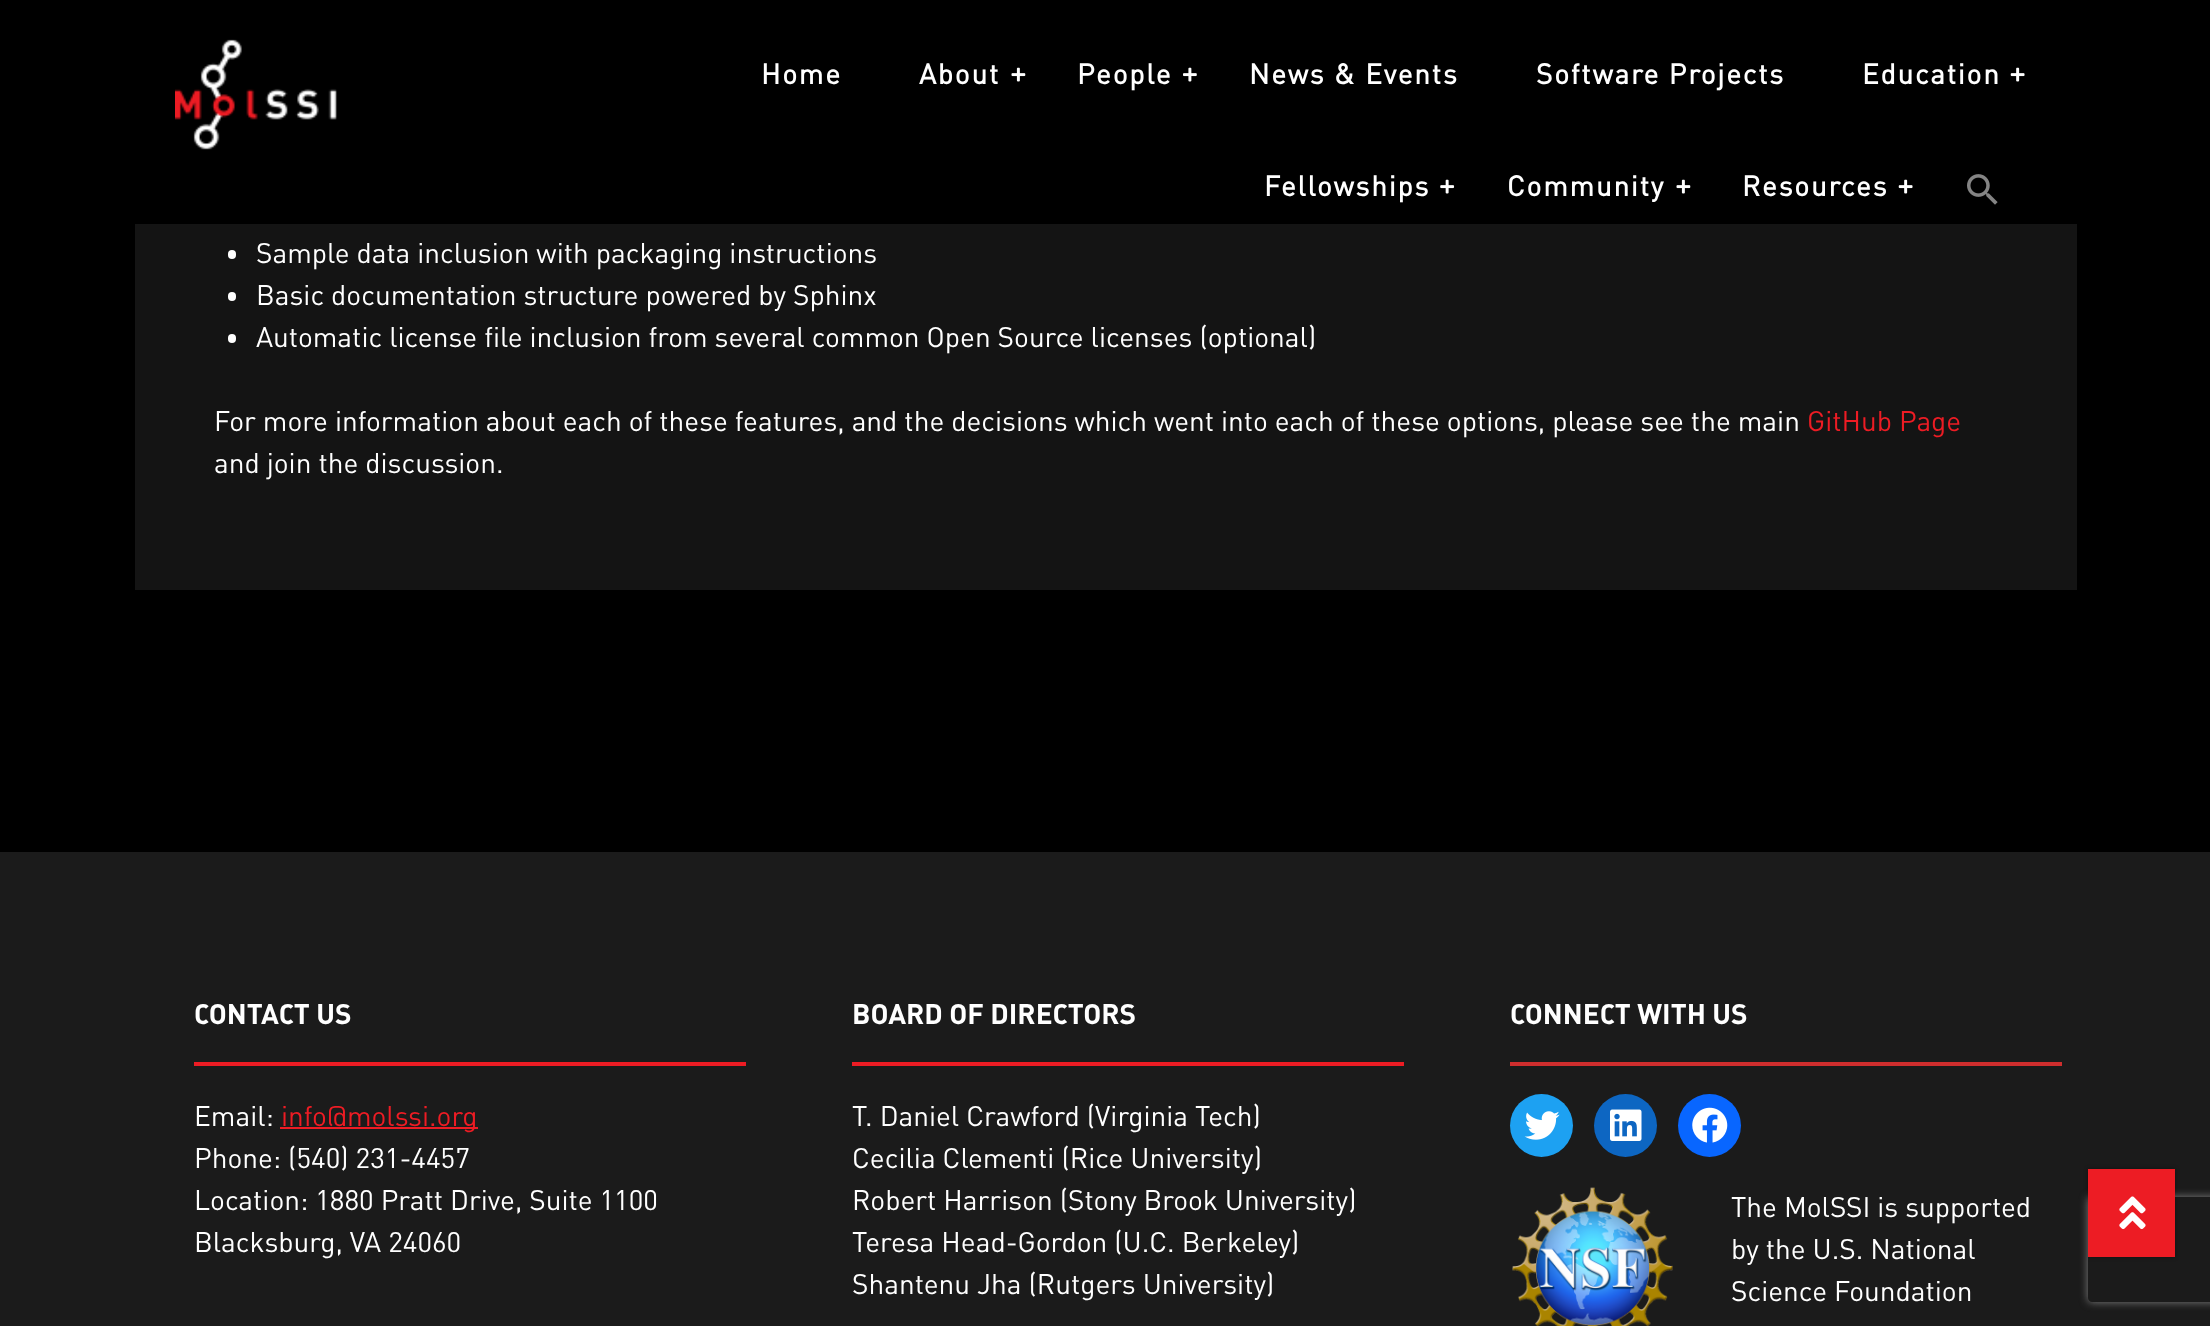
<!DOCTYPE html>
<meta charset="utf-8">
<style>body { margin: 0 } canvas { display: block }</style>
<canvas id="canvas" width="2210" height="1326"></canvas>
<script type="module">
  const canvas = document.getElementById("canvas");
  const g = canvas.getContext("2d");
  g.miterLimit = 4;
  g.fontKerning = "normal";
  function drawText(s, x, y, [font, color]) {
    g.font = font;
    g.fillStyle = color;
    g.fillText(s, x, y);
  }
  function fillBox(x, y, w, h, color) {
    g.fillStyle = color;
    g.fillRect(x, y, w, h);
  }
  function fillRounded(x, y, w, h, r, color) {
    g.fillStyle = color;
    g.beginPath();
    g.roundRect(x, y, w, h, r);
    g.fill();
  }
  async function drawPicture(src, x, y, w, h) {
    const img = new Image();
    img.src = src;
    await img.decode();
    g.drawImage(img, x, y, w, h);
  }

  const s1 = ["bold 28px 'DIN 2'", "#FFFFFF"];
  const s2 = ["28px DIN", "#FFFFFF"];
  const s3 = ["28px DIN", "#ED1C24"];
  const s4 = ["bold 28px DIN", "#FFFFFF"];

  fillBox(0, 0, 2210, 1326, "#000000");
  await drawPicture("pic1.png", 175, 39, 162, 111);
  g.letterSpacing = "1.75px";
  drawText("Home", 761, 84, s1);
  drawText("About", 919, 84, s1);
  await drawPicture("pic2.png", 1011, 67, 15, 15);
  drawText("People", 1077, 84, s1);
  await drawPicture("pic3.png", 1183, 67, 14, 15);
  drawText("News & Events", 1249, 84, s1);
  drawText("Software Projects", 1536, 84, s1);
  drawText("Education", 1862, 84, s1);
  await drawPicture("pic4.png", 2010, 67, 15, 15);
  drawText("Fellowships", 1264, 196, s1);
  await drawPicture("pic5.png", 1440, 179, 15, 15);
  drawText("Community", 1507, 196, s1);
  await drawPicture("pic2.png", 1676, 179, 15, 15);
  drawText("Resources", 1742, 196, s1);
  await drawPicture("pic4.png", 1898, 179, 15, 15);
  await drawPicture("pic6.png", 1967, 174, 31, 31);
  fillBox(135, 224, 1942, 366, "#141414");
  fillRounded(228, 250, 8, 9, 4, "#FFFFFF");
  g.letterSpacing = "0px";
  drawText("Sample data inclusion with packaging instructions", 256, 263, s2);
  fillRounded(228, 292, 8, 9, 4, "#FFFFFF");
  drawText("Basic documentation structure powered by Sphinx", 256, 305, s2);
  fillRounded(228, 334, 8, 9, 4, "#FFFFFF");
  drawText("Automatic license file inclusion from several common Open Source licenses (optional)", 256, 347, s2);
  drawText("For more information about each of these features, and the decisions which went into each of these options, please see the main", 214, 431, s2);
  drawText("GitHub Page", 1807, 431, s3);
  drawText("and join the discussion.", 214, 473, s2);
  fillBox(0, 852, 2210, 474, "#1B1B1B");
  drawText("CONTACT US", 194, 1024, s4);
  fillBox(194, 1062, 552, 4, "#ED1C24");
  drawText("Email:", 194, 1126, s2);
  fillBox(280, 1127, 198, 2, "#ED1C24");
  drawText("info@molssi.org", 281, 1126, s3);
  drawText("Phone: (540) 231-4457", 194, 1168, s2);
  drawText("Location: 1880 Pratt Drive, Suite 1100", 194, 1210, s2);
  drawText("Blacksburg, VA 24060", 194, 1252, s2);
  drawText("BOARD OF DIRECTORS", 852, 1024, s4);
  fillBox(852, 1062, 552, 4, "#ED1C24");
  drawText("T. Daniel Crawford (Virginia Tech)", 852, 1126, s2);
  drawText("Cecilia Clementi (Rice University)", 852, 1168, s2);
  drawText("Robert Harrison (Stony Brook University)", 852, 1210, s2);
  drawText("Teresa Head-Gordon (U.C. Berkeley)", 852, 1252, s2);
  drawText("Shantenu Jha (Rutgers University)", 852, 1294, s2);
  drawText("CONNECT WITH US", 1510, 1024, s4);
  fillBox(1510, 1062, 552, 4, "#CF2E2E");
  g.fillStyle = "#1DA1F2";
  g.beginPath();
  g.arc(1541.5, 1125.5, 31.5, 0, Math.PI * 2);
  g.fill();
  await drawPicture("pic7.png", 1524, 1111, 36, 29);
  g.fillStyle = "#0D66C2";
  g.beginPath();
  g.arc(1625.5, 1125.5, 31.5, 0, Math.PI * 2);
  g.fill();
  await drawPicture("pic8.png", 1610, 1109, 32, 32);
  g.fillStyle = "#0866FF";
  g.beginPath();
  g.arc(1709.5, 1125.5, 31.5, 0, Math.PI * 2);
  g.fill();
  await drawPicture("pic9.png", 1692, 1107, 36, 36);
  await drawPicture("pic10.png", 1512, 1187, 161, 139);
  drawText("The MolSSI is supported", 1731, 1217, s2);
  drawText("by the U.S. National", 1731, 1259, s2);
  drawText("Science Foundation", 1731, 1301, s2);
  g.fillStyle = "rgba(0, 0, 0, 0.4)";
  g.filter = "blur(2px)";
  g.beginPath();
  g.rect(2088, 1169, 87, 88);
  g.fill();
  g.filter = "none";
  g.save();
  g.beginPath();
  g.moveTo(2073, 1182);
  g.lineTo(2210, 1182);
  g.lineTo(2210, 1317);
  g.lineTo(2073, 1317);
  g.closePath();
  g.moveTo(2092, 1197);
  g.lineTo(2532, 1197);
  g.bezierCurveTo(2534, 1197, 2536, 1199, 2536, 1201);
  g.lineTo(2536, 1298);
  g.bezierCurveTo(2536, 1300, 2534, 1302, 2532, 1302);
  g.lineTo(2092, 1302);
  g.bezierCurveTo(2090, 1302, 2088, 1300, 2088, 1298);
  g.lineTo(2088, 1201);
  g.bezierCurveTo(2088, 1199, 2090, 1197, 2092, 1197);
  g.closePath();
  g.clip("evenodd");
  g.fillStyle = "#808080";
  g.filter = "blur(4.5px)";
  g.beginPath();
  g.roundRect(2088, 1197, 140, 105, 4);
  g.fill();
  g.filter = "none";
  g.restore();
  fillBox(2088, 1169, 87, 88, "#ED1C24");
  await drawPicture("pic11.png", 2119, 1196, 27, 34);
</script>
